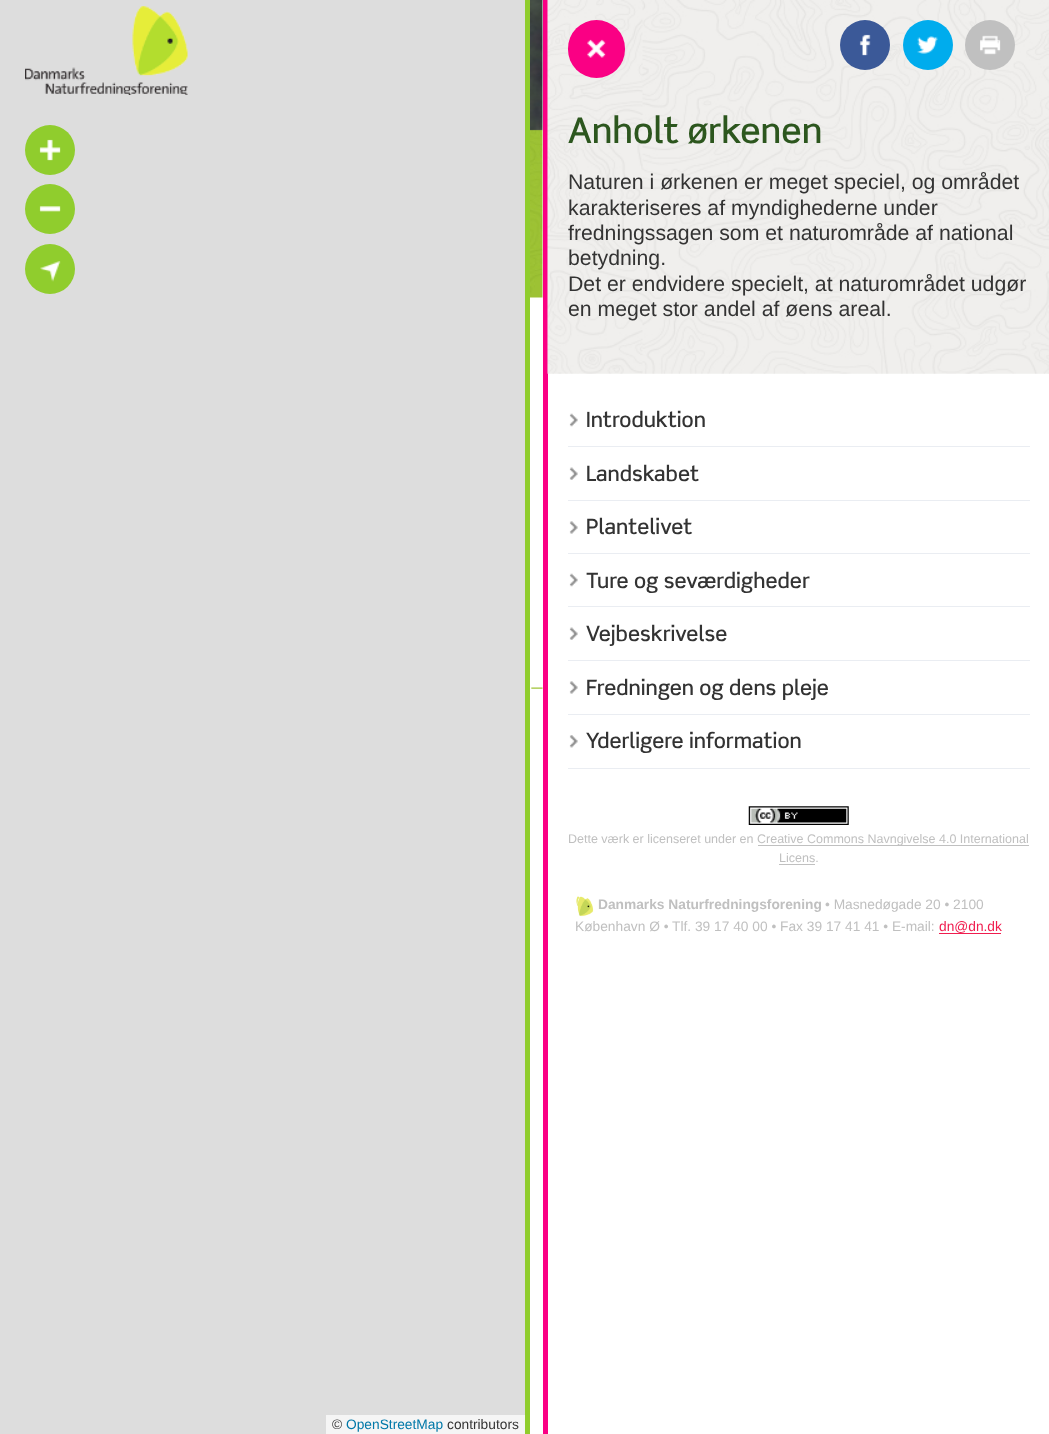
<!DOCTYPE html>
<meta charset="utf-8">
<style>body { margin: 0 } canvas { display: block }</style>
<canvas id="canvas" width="1049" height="1434"></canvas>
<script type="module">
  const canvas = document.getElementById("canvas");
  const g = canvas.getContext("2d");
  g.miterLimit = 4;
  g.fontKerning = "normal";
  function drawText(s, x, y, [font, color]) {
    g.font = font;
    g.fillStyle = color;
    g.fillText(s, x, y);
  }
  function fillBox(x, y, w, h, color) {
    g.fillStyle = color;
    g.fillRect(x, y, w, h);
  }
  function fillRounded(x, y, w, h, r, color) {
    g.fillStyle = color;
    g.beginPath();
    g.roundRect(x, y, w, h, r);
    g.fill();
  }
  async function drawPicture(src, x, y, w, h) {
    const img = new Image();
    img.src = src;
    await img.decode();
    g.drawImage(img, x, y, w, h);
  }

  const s1 = ["500 35.5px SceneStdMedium", "#2C561E"];
  const s2 = ["21.25px Liberation Sans", "#333333"];
  const s3 = ["500 21px SceneStdMedium", "#333333"];
  const s4 = ["12.5px Liberation Sans", "#C0C0C0"];
  const s5 = ["bold 13.75px Liberation Sans", "#C0C0C0"];
  const s6 = ["13.75px Liberation Sans", "#C0C0C0"];
  const s7 = ["13.75px Liberation Sans", "#F01D4F"];
  const s8 = ["13.75px Liberation Sans", "#333333"];
  const s9 = ["13.75px Liberation Sans", "#0078A8"];

  fillBox(0, 0, 1049, 1434, "#FFFFFF");
  fillBox(0, 0, 525, 1434, "#DDDDDD");
  await drawPicture("pic1.png", 25, 6, 163, 89);
  await drawPicture("pic2.png", 530, 0, 13, 689);
  fillBox(525, 0, 5, 1434, "#90CD2D");
  fillBox(543, 0, 5, 1434, "#FA0084");
  await drawPicture("pic3.png", 547, 0, 502, 374);
  fillRounded(568, 20, 57, 58, 28.5, "#FA0084");
  await drawPicture("pic4.png", 587, 39, 19, 19);
  g.fillStyle = "#3B5998";
  g.beginPath();
  g.arc(865, 45, 25, 0, Math.PI * 2);
  g.fill();
  await drawPicture("pic5.png", 859, 34, 12, 22);
  g.fillStyle = "#00ACED";
  g.beginPath();
  g.arc(928, 45, 25, 0, Math.PI * 2);
  g.fill();
  await drawPicture("pic6.png", 917, 36, 21, 18);
  g.fillStyle = "#C0C0C0";
  g.beginPath();
  g.arc(990, 45, 25, 0, Math.PI * 2);
  g.fill();
  await drawPicture("pic7.png", 980, 35, 21, 20);
  drawText("Anholt ørkenen", 568, 143, s1);
  drawText("Naturen i ørkenen er meget speciel, og området", 568, 189, s2);
  drawText("karakteriseres af myndighederne under", 568, 215, s2);
  drawText("fredningssagen som et naturområde af national", 568, 240, s2);
  drawText("betydning.", 568, 265, s2);
  drawText("Det er endvidere specielt, at naturområdet udgør", 568, 291, s2);
  drawText("en meget stor andel af øens areal.", 568, 316, s2);
  fillBox(568, 446, 462, 1, "#EAEDF2");
  await drawPicture("pic8.png", 569, 413, 9, 14);
  drawText("Introduktion", 586, 427, s3);
  fillBox(568, 500, 462, 1, "#EAEDF2");
  await drawPicture("pic9.png", 569, 467, 9, 13);
  drawText("Landskabet", 586, 481, s3);
  fillBox(568, 553, 462, 1, "#EAEDF2");
  await drawPicture("pic10.png", 569, 521, 9, 13);
  drawText("Plantelivet", 586, 534, s3);
  fillBox(568, 606, 462, 1, "#EAEDF2");
  await drawPicture("pic8.png", 569, 573, 9, 14);
  drawText("Ture og seværdigheder", 586, 588, s3);
  fillBox(568, 660, 462, 1, "#EAEDF2");
  await drawPicture("pic9.png", 569, 627, 9, 13);
  drawText("Vejbeskrivelse", 586, 641, s3);
  fillBox(568, 714, 462, 1, "#EAEDF2");
  await drawPicture("pic10.png", 569, 681, 9, 13);
  drawText("Fredningen og dens pleje", 586, 695, s3);
  fillBox(568, 768, 462, 1, "#EAEDF2");
  await drawPicture("pic11.png", 569, 735, 9, 13);
  drawText("Yderligere information", 586, 748, s3);
  await drawPicture("pic12.png", 748, 806, 101, 19);
  drawText("Dette værk er licenseret under en", 568, 843, s4);
  fillBox(758, 845, 271, 1, "#C0C0C0");
  drawText("Creative Commons Navngivelse 4.0 International", 757, 843, s4);
  drawText("Licens.", 779, 862, s4);
  fillBox(779, 864, 36, 1, "#C0C0C0");
  await drawPicture("pic13.png", 576, 896, 18, 21);
  drawText("Danmarks Naturfredningsforening", 598, 909, s5);
  drawText("• Masnedøgade 20 • 2100", 825, 909, s6);
  drawText("København Ø • Tlf. 39 17 40 00 • Fax 39 17 41 41 • E-mail:", 575, 931, s6);
  drawText("dn@dn.dk", 939, 931, s7);
  fillBox(939, 933, 62, 1, "#F01D4F");
  g.fillStyle = "#90CD2D";
  g.beginPath();
  g.arc(50, 150, 25, 0, Math.PI * 2);
  g.fill();
  await drawPicture("pic14.png", 39, 139, 22, 22);
  g.beginPath();
  g.arc(50, 209, 25, 0, Math.PI * 2);
  g.fill();
  await drawPicture("pic15.png", 39, 206, 22, 6);
  g.beginPath();
  g.arc(50, 269, 25, 0, Math.PI * 2);
  g.fill();
  await drawPicture("pic16.png", 40, 261, 21, 21);
  fillBox(326, 1415, 199, 19, "#F5F5F5");
  drawText("©", 332, 1429, s8);
  drawText("OpenStreetMap", 346, 1429, s9);
  drawText("contributors", 447, 1429, s8);
</script>
